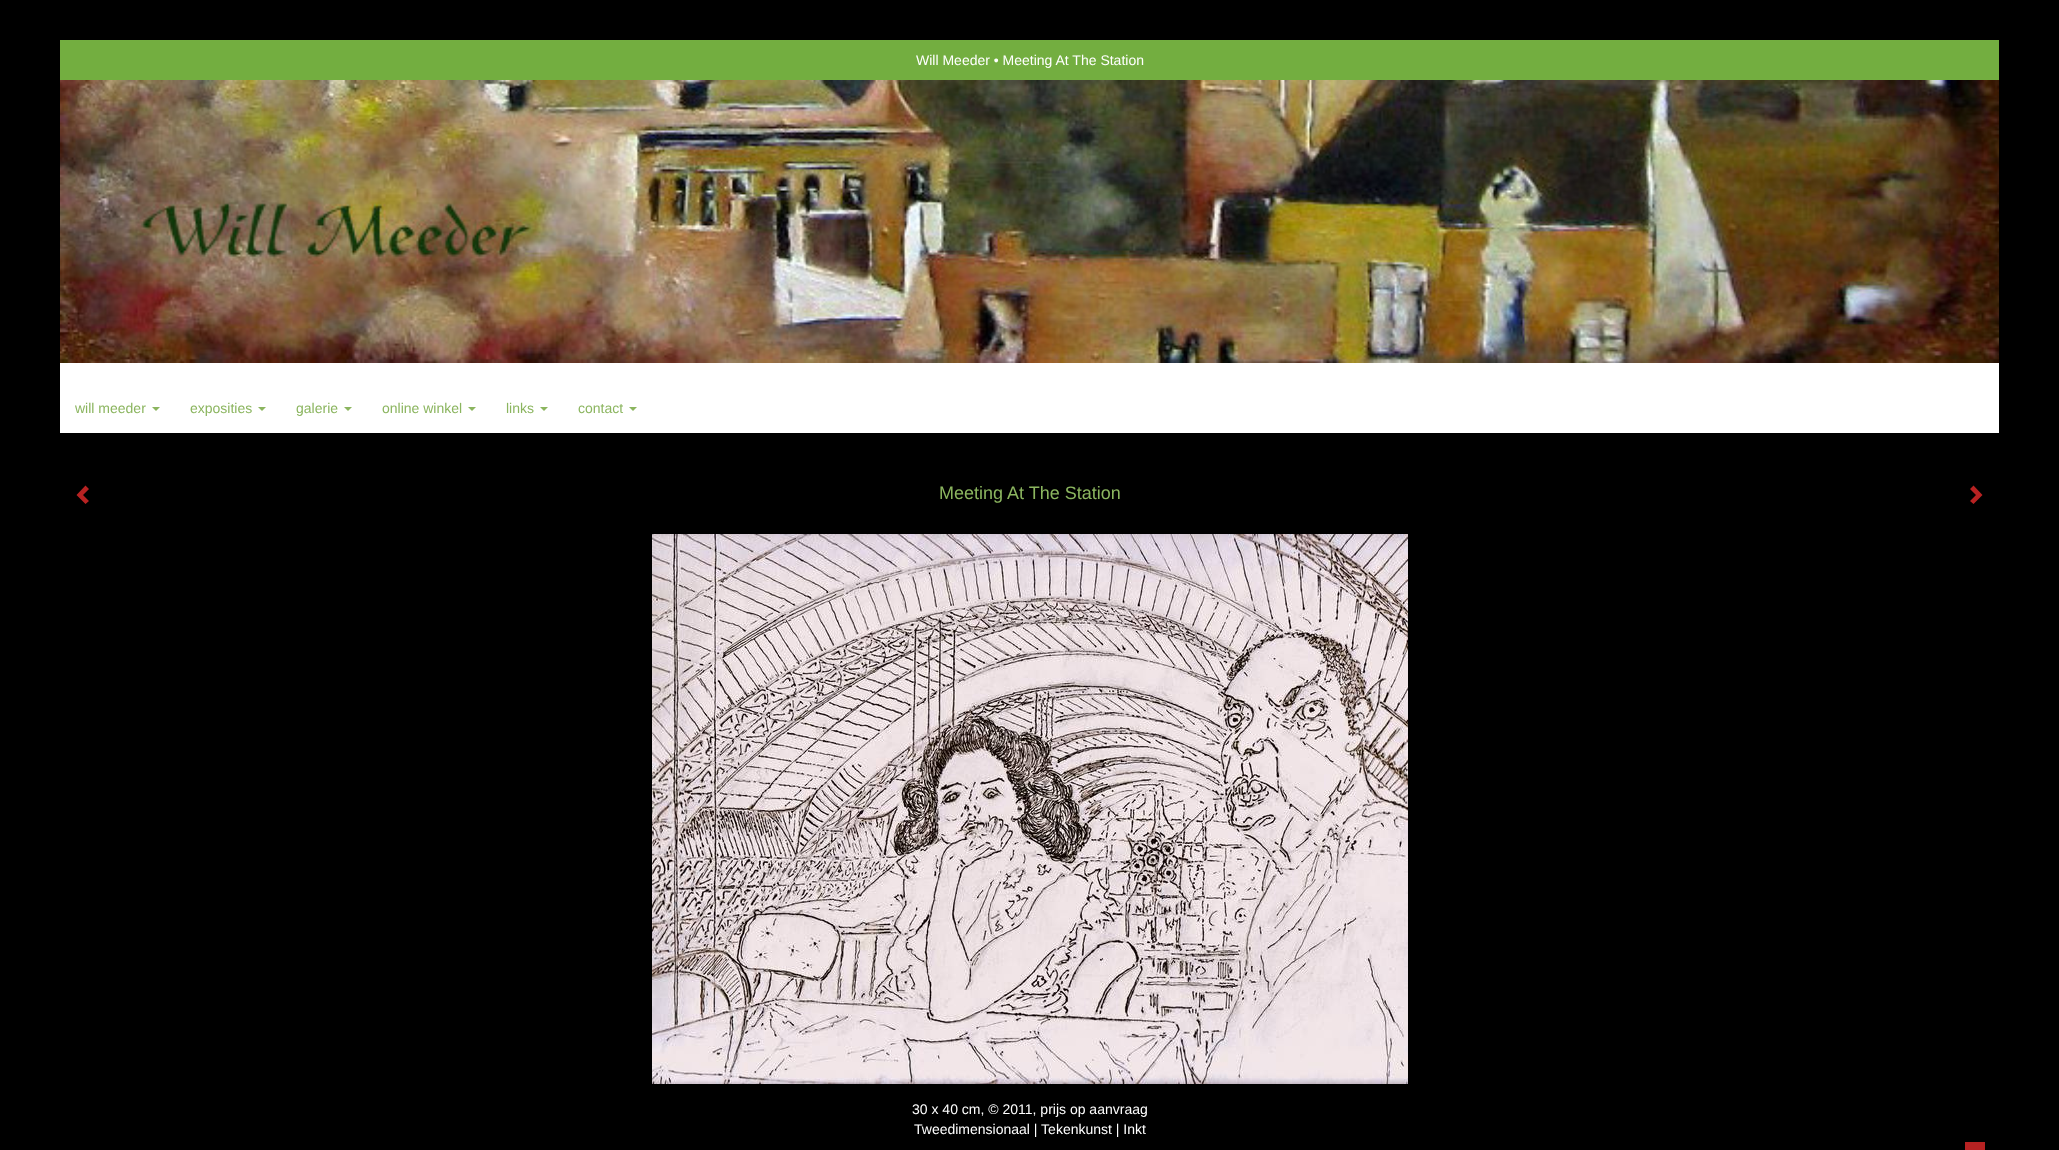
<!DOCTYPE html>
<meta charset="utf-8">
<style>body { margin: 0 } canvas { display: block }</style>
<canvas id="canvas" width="2059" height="1150"></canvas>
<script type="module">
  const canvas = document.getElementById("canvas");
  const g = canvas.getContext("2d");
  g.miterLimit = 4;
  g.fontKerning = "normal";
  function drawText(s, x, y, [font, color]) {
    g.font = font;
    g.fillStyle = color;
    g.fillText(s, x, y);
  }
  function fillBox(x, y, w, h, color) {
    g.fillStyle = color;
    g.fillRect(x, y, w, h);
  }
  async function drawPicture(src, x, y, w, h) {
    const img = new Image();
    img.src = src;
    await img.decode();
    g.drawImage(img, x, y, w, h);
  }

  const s1 = ["14px Liberation Sans", "#FFFFFF"];
  const s2 = ["14px Liberation Sans", "#8BB55F"];
  const s3 = ["18px Liberation Sans", "#8BB55F"];

  fillBox(0, 0, 2059, 1150, "#000000");
  fillBox(60, 40, 1939, 40, "#73AE40");
  drawText("Will Meeder • Meeting At The Station", 916, 65, s1);
  await drawPicture("pic1.png", 60, 80, 1939, 283);
  fillBox(60, 363, 1939, 70, "#FFFFFF");
  drawText("will meeder", 75, 413, s2);
  g.beginPath();
  g.moveTo(152, 407);
  g.lineTo(160, 407);
  g.lineTo(156, 411);
  g.closePath();
  g.fill();
  drawText("exposities", 190, 413, s2);
  g.beginPath();
  g.moveTo(258, 407);
  g.lineTo(266, 407);
  g.lineTo(262, 411);
  g.closePath();
  g.fill();
  drawText("galerie", 296, 413, s2);
  g.beginPath();
  g.moveTo(344, 407);
  g.lineTo(352, 407);
  g.lineTo(348, 411);
  g.closePath();
  g.fill();
  drawText("online winkel", 382, 413, s2);
  g.beginPath();
  g.moveTo(468, 407);
  g.lineTo(476, 407);
  g.lineTo(472, 411);
  g.closePath();
  g.fill();
  drawText("links", 506, 413, s2);
  g.beginPath();
  g.moveTo(540, 407);
  g.lineTo(548, 407);
  g.lineTo(544, 411);
  g.closePath();
  g.fill();
  drawText("contact", 578, 413, s2);
  g.beginPath();
  g.moveTo(629, 407);
  g.lineTo(637, 407);
  g.lineTo(633, 411);
  g.closePath();
  g.fill();
  g.fillStyle = "#B72222";
  g.beginPath();
  g.moveTo(89, 489);
  g.lineTo(83, 495);
  g.lineTo(89, 501);
  g.lineTo(85.5, 504);
  g.lineTo(76.5, 495);
  g.lineTo(85.5, 485.5);
  g.closePath();
  g.fill();
  drawText("Meeting At The Station", 939, 499, s3);
  g.fillStyle = "#B72222";
  g.beginPath();
  g.moveTo(1982.5, 495);
  g.lineTo(1973.5, 504);
  g.lineTo(1970, 501);
  g.lineTo(1976, 495);
  g.lineTo(1970, 489);
  g.lineTo(1973.5, 485.5);
  g.closePath();
  g.fill();
  await drawPicture("pic2.png", 652, 534, 756, 550);
  drawText("30 x 40 cm, © 2011, prijs op aanvraag", 912, 1114, s1);
  drawText("Tweedimensionaal | Tekenkunst | Inkt", 914, 1134, s1);
  fillBox(1965, 1142, 20, 8, "#B72222");
</script>
